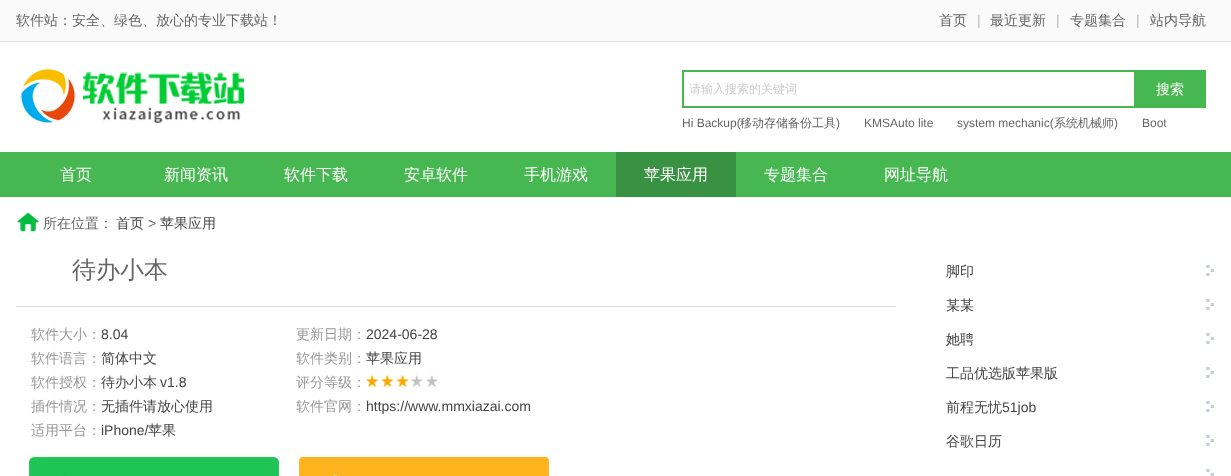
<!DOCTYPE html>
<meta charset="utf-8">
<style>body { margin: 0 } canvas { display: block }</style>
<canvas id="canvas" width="1231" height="476"></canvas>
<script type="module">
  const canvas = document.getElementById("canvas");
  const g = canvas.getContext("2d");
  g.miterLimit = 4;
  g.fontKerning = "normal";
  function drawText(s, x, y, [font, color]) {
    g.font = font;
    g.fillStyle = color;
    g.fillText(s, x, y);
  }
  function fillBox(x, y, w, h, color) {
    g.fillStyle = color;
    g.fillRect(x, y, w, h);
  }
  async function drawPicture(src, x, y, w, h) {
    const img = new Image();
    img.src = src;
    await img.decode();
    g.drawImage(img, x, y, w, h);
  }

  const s1 = ["500 14px WenQuanYi Zen Hei", "#666666"];
  const s2 = ["14px Liberation Sans", "#BBBBBB"];
  const s3 = ["500 12px WenQuanYi Zen Hei", "#CCCCCC"];
  const s4 = ["500 14px WenQuanYi Zen Hei", "#FFFFFF"];
  const s5 = ["12px Liberation Sans", "#666666"];
  const s6 = ["500 12px WenQuanYi Zen Hei", "#666666"];
  const s7 = ["500 16px WenQuanYi Zen Hei", "#FFFFFF"];
  const s8 = ["500 14px WenQuanYi Zen Hei", "#444444"];
  const s9 = ["14px Liberation Sans", "#666666"];
  const s10 = ["500 24px WenQuanYi Zen Hei", "#666666"];
  const s11 = ["500 14px WenQuanYi Zen Hei", "#999999"];
  const s12 = ["14px Liberation Sans", "#444444"];

  fillBox(0, 0, 1231, 476, "#FFFFFF");
  fillBox(0, 0, 1231, 41, "#FAFAFA");
  fillBox(0, 41, 1231, 1, "#E2E2E2");
  drawText("软件站：安全、绿色、放心的专业下载站！", 16, 25, s1);
  drawText("首页", 939, 25, s1);
  drawText("|", 977, 25, s2);
  drawText("最近更新", 990, 25, s1);
  drawText("|", 1056, 25, s2);
  drawText("专题集合", 1070, 25, s1);
  drawText("|", 1136, 25, s2);
  drawText("站内导航", 1150, 25, s1);
  await drawPicture("pic1.png", 21, 69, 223, 54);
  fillBox(682, 70, 452, 2, "#47B751");
  fillBox(682, 106, 452, 2, "#47B751");
  fillBox(682, 70, 2, 38, "#47B751");
  drawText("请输入搜索的关键词", 689, 93, s3);
  fillBox(1134, 70, 72, 38, "#47B751");
  drawText("搜索", 1156, 94, s4);
  drawText("Hi Backup(", 682, 127, s5);
  drawText("移动存储备份工具", 740, 127, s6);
  drawText(")", 836, 127, s5);
  drawText("KMSAuto lite", 864, 127, s5);
  drawText("system mechanic(", 957, 127, s5);
  drawText("系统机械师", 1054, 127, s6);
  drawText(")", 1114, 127, s5);
  drawText("Boot", 1142, 127, s5);
  fillBox(0, 152, 1231, 45, "#47B751");
  drawText("首页", 60, 180, s7);
  drawText("新闻资讯", 164, 180, s7);
  drawText("软件下载", 284, 180, s7);
  drawText("安卓软件", 404, 180, s7);
  drawText("手机游戏", 524, 180, s7);
  fillBox(616, 152, 120, 45, "#399241");
  drawText("苹果应用", 644, 180, s7);
  drawText("专题集合", 764, 180, s7);
  drawText("网址导航", 884, 180, s7);
  await drawPicture("pic2.png", 17, 212, 22, 20);
  drawText("所在位置：", 43, 228, s1);
  drawText("首页", 116, 228, s8);
  drawText(">", 148, 228, s9);
  drawText("苹果应用", 160, 228, s8);
  fillBox(16, 306, 880, 1, "#DDDDDD");
  drawText("待办小本", 72, 278, s10);
  drawText("软件大小：", 31, 339, s11);
  drawText("8.04", 101, 339, s12);
  drawText("更新日期：", 296, 339, s11);
  drawText("2024-06-28", 366, 339, s12);
  drawText("软件语言：", 31, 363, s11);
  drawText("简体中文", 101, 363, s8);
  drawText("软件类别：", 296, 363, s11);
  drawText("苹果应用", 366, 363, s8);
  drawText("软件授权：", 31, 387, s11);
  drawText("待办小本", 101, 387, s8);
  drawText("v1.8", 160, 387, s12);
  drawText("评分等级：", 296, 387, s11);
  await drawPicture("pic3.png", 366, 375, 72, 12);
  drawText("插件情况：", 31, 411, s11);
  drawText("无插件请放心使用", 101, 411, s8);
  drawText("软件官网：", 296, 411, s11);
  drawText("https://www.mmxiazai.com", 366, 411, s12);
  drawText("适用平台：", 31, 435, s11);
  drawText("iPhone/", 101, 435, s12);
  drawText("苹果", 148, 435, s8);
  await drawPicture("pic4.png", 29, 457, 250, 19);
  await drawPicture("pic5.png", 299, 457, 250, 19);
  drawText("脚印", 946, 276, s8);
  await drawPicture("pic6.png", 1206, 265, 8, 11);
  drawText("某某", 946, 310, s8);
  await drawPicture("pic6.png", 1206, 299, 8, 11);
  drawText("她聘", 946, 344, s8);
  await drawPicture("pic6.png", 1206, 333, 8, 11);
  drawText("工品优选版苹果版", 946, 378, s8);
  await drawPicture("pic6.png", 1206, 367, 8, 11);
  drawText("前程无忧", 946, 412, s8);
  drawText("51job", 1002, 412, s12);
  await drawPicture("pic6.png", 1206, 401, 8, 11);
  drawText("谷歌日历", 946, 446, s8);
  await drawPicture("pic6.png", 1206, 435, 8, 11);
  await drawPicture("pic7.png", 1206, 469, 8, 7);
</script>
